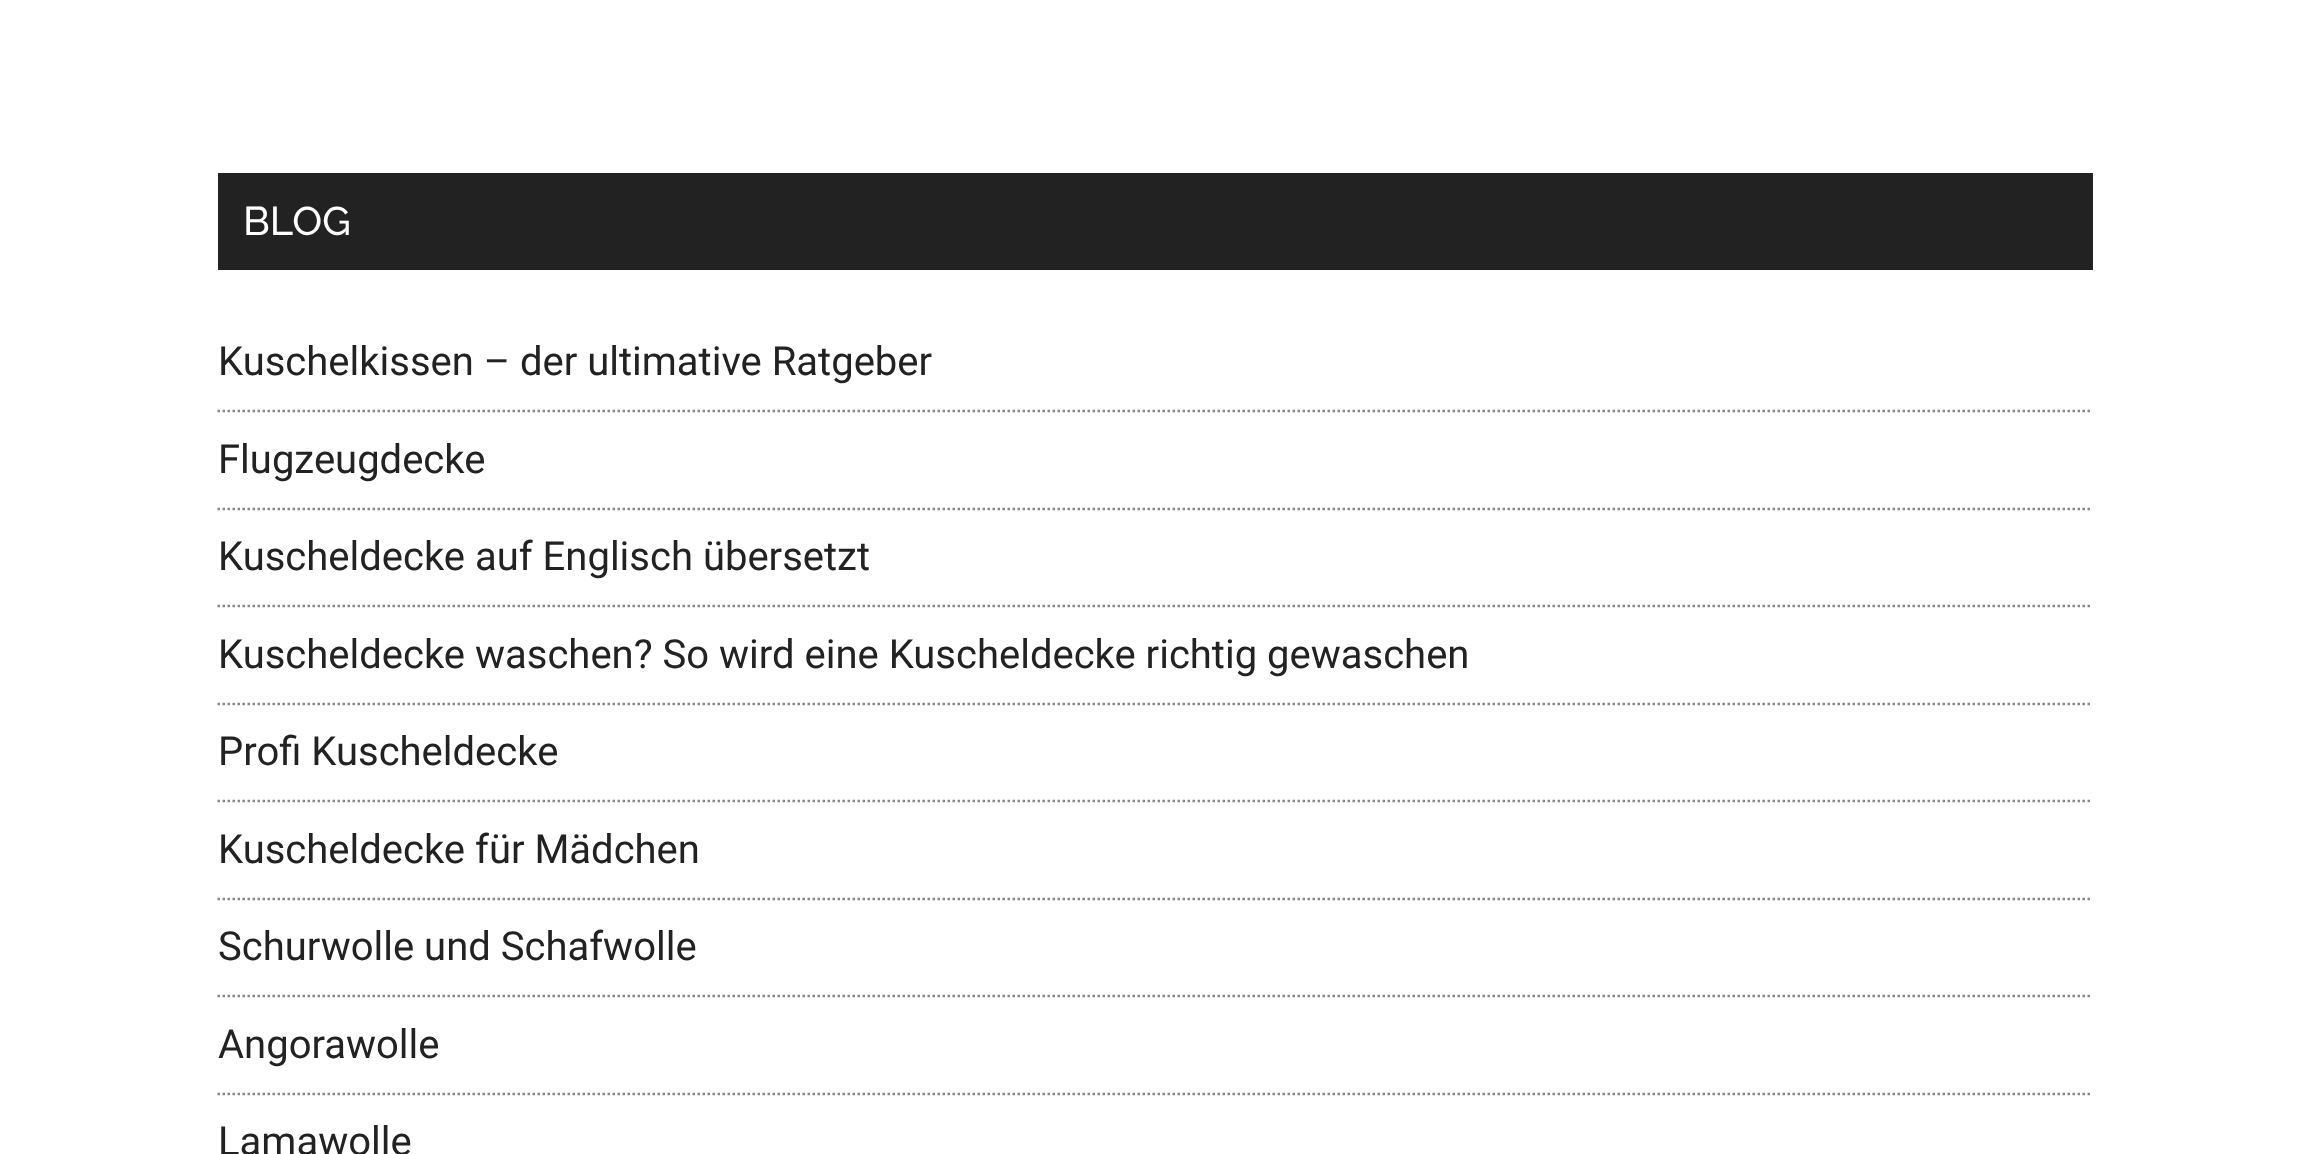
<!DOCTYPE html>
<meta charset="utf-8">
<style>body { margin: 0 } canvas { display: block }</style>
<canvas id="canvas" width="2309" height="1154"></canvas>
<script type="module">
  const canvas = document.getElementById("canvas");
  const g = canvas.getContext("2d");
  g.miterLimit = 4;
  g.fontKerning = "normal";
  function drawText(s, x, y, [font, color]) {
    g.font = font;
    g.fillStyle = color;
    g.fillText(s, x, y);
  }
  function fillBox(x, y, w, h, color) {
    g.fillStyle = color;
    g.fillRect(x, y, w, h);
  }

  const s1 = ["500 40px Raleway", "#FFFFFF"];
  const s2 = ["40px Roboto", "#222222"];

  fillBox(0, 0, 2309, 1154, "#FFFFFF");
  fillBox(218, 173, 1875, 97, "#222222");
  drawText("BLOG", 243, 235, s1);
  g.beginPath();
  g.moveTo(217.5, 411);
  g.lineTo(2092.5, 411);
  g.strokeStyle = "#888888";
  g.lineWidth = 2.5;
  g.setLineDash([2.5, 2.5]);
  g.stroke();
  drawText("Kuschelkissen – der ultimative Ratgeber", 218, 375, s2);
  g.beginPath();
  g.moveTo(217.5, 509);
  g.lineTo(2092.5, 509);
  g.stroke();
  drawText("Flugzeugdecke", 218, 473, s2);
  g.beginPath();
  g.moveTo(217.5, 606);
  g.lineTo(2092.5, 606);
  g.stroke();
  drawText("Kuscheldecke auf Englisch übersetzt", 218, 570, s2);
  g.beginPath();
  g.moveTo(217.5, 704);
  g.lineTo(2092.5, 704);
  g.stroke();
  drawText("Kuscheldecke waschen? So wird eine Kuscheldecke richtig gewaschen", 218, 668, s2);
  g.beginPath();
  g.moveTo(217.5, 801);
  g.lineTo(2092.5, 801);
  g.stroke();
  drawText("Profi Kuscheldecke", 218, 765, s2);
  g.beginPath();
  g.moveTo(217.5, 899);
  g.lineTo(2092.5, 899);
  g.stroke();
  drawText("Kuscheldecke für Mädchen", 218, 863, s2);
  g.beginPath();
  g.moveTo(217.5, 996);
  g.lineTo(2092.5, 996);
  g.stroke();
  drawText("Schurwolle und Schafwolle", 218, 960, s2);
  g.beginPath();
  g.moveTo(217.5, 1094);
  g.lineTo(2092.5, 1094);
  g.stroke();
  drawText("Angorawolle", 218, 1058, s2);
  drawText("Lamawolle", 218, 1155, s2);
</script>
